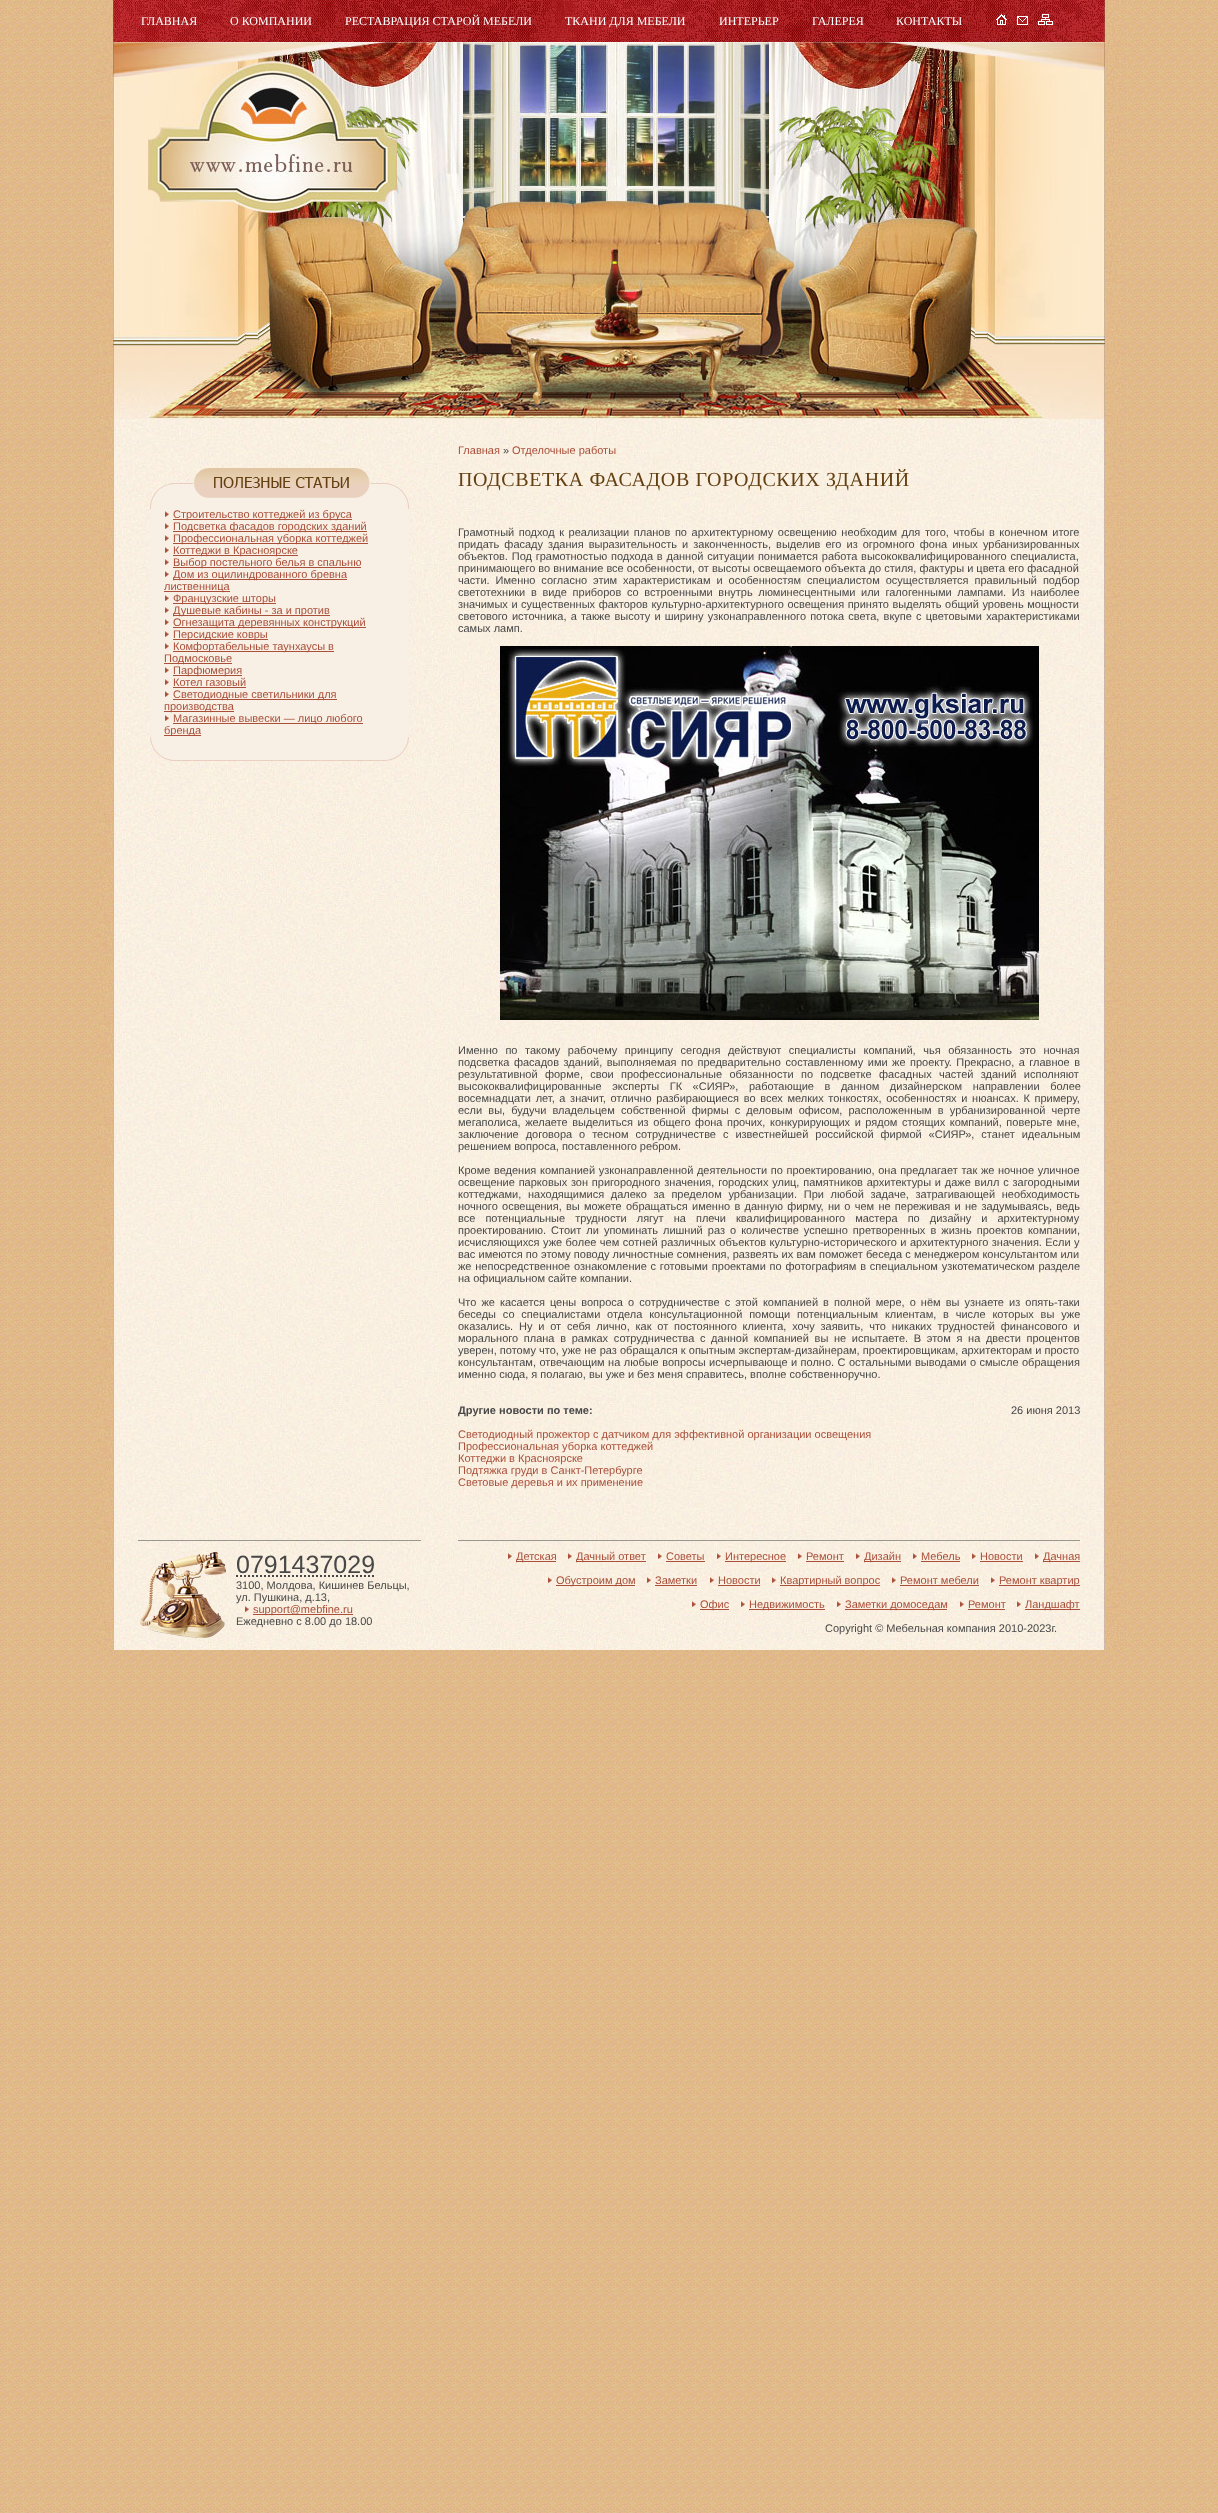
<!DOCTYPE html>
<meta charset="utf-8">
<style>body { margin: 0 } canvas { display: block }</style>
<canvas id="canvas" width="1218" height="2513"></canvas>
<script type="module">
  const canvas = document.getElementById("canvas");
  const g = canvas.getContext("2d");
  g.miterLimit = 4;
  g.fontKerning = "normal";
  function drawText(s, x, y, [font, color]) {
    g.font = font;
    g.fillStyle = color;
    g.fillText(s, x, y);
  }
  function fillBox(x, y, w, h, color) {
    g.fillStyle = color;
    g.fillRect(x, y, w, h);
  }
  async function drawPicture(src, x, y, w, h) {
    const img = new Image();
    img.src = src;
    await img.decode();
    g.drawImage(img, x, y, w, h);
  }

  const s1 = ["12px Liberation Serif", "#FFFFFF"];
  const s2 = ["11px Liberation Sans", "#A94F3A"];
  const s3 = ["11px Liberation Sans", "#474747"];
  const s4 = ["20px Liberation Serif", "#633F11"];
  const s5 = ["bold 11px Liberation Sans", "#474747"];
  const s6 = ["25px Liberation Sans", "#474747"];

  fillBox(0, 0, 1218, 2513, "#FFFFFF");
  await drawPicture("pic1.png", 0, 0, 1218, 2513);
  await drawPicture("pic2.png", 97, 419, 1024, 1231);
  await drawPicture("pic3.png", 97, 0, 1024, 42);
  drawText("ГЛАВНАЯ", 141, 25, s1);
  drawText("О КОМПАНИИ", 230, 25, s1);
  drawText("РЕСТАВРАЦИЯ СТАРОЙ МЕБЕЛИ", 345, 25, s1);
  drawText("ТКАНИ ДЛЯ МЕБЕЛИ", 565, 25, s1);
  drawText("ИНТЕРЬЕР", 719, 25, s1);
  drawText("ГАЛЕРЕЯ", 812, 25, s1);
  drawText("КОНТАКТЫ", 896, 25, s1);
  await drawPicture("pic4.png", 996, 14, 11, 11);
  await drawPicture("pic5.png", 1017, 16, 11, 9);
  await drawPicture("pic6.png", 1038, 14, 15, 11);
  await drawPicture("pic7.png", 97, 42, 1024, 377);
  fillBox(150, 509, 259, 228, "#F8F0E5");
  await drawPicture("pic8.png", 150, 737, 259, 24);
  await drawPicture("pic9.png", 150, 468, 259, 41);
  await drawPicture("pic10.png", 165, 511, 4, 6);
  fillBox(173, 519, 179, 1, "#A94F3A");
  drawText("Строительство коттеджей из бруса", 173, 518, s2);
  await drawPicture("pic10.png", 165, 523, 4, 6);
  fillBox(173, 531, 194, 1, "#A94F3A");
  drawText("Подсветка фасадов городских зданий", 173, 530, s2);
  await drawPicture("pic10.png", 165, 535, 4, 6);
  fillBox(173, 543, 195, 1, "#A94F3A");
  drawText("Профессиональная уборка коттеджей", 173, 542, s2);
  await drawPicture("pic10.png", 165, 547, 4, 6);
  fillBox(173, 555, 125, 1, "#A94F3A");
  drawText("Коттеджи в Красноярске", 173, 554, s2);
  await drawPicture("pic10.png", 165, 559, 4, 6);
  fillBox(173, 567, 188, 1, "#A94F3A");
  drawText("Выбор постельного белья в спальню", 173, 566, s2);
  await drawPicture("pic10.png", 165, 571, 4, 6);
  fillBox(173, 579, 174, 1, "#A94F3A");
  drawText("Дом из оцилиндрованного бревна", 173, 578, s2);
  fillBox(164, 591, 66, 1, "#A94F3A");
  drawText("лиственница", 164, 590, s2);
  await drawPicture("pic10.png", 165, 595, 4, 6);
  fillBox(173, 603, 103, 1, "#A94F3A");
  drawText("Французские шторы", 173, 602, s2);
  await drawPicture("pic10.png", 165, 607, 4, 6);
  fillBox(173, 615, 157, 1, "#A94F3A");
  drawText("Душевые кабины - за и против", 173, 614, s2);
  await drawPicture("pic10.png", 165, 619, 4, 6);
  fillBox(173, 627, 193, 1, "#A94F3A");
  drawText("Огнезащита деревянных конструкций", 173, 626, s2);
  await drawPicture("pic10.png", 165, 631, 4, 6);
  fillBox(173, 639, 95, 1, "#A94F3A");
  drawText("Персидские ковры", 173, 638, s2);
  await drawPicture("pic10.png", 165, 643, 4, 6);
  fillBox(173, 651, 161, 1, "#A94F3A");
  drawText("Комфортабельные таунхаусы в", 173, 650, s2);
  fillBox(164, 663, 68, 1, "#A94F3A");
  drawText("Подмосковье", 164, 662, s2);
  await drawPicture("pic10.png", 165, 667, 4, 6);
  fillBox(173, 675, 69, 1, "#A94F3A");
  drawText("Парфюмерия", 173, 674, s2);
  await drawPicture("pic10.png", 165, 679, 4, 6);
  drawText("Котел газовый", 173, 686, s2);
  fillBox(173, 687, 73, 1, "#A94F3A");
  await drawPicture("pic10.png", 165, 691, 4, 6);
  fillBox(173, 699, 164, 1, "#A94F3A");
  drawText("Светодиодные светильники для", 173, 698, s2);
  fillBox(164, 711, 70, 1, "#A94F3A");
  drawText("производства", 164, 710, s2);
  await drawPicture("pic10.png", 165, 715, 4, 6);
  fillBox(173, 723, 190, 1, "#A94F3A");
  drawText("Магазинные вывески — лицо любого", 173, 722, s2);
  fillBox(164, 735, 37, 1, "#A94F3A");
  g.save();
  g.beginPath();
  g.rect(138, 468, 283, 268);
  g.clip();
  drawText("бренда", 164, 734, s2);
  g.restore();
  drawText("Главная", 458, 454, s2);
  drawText("»", 503, 454, s3);
  drawText("Отделочные работы", 512, 454, s2);
  g.letterSpacing = "0.6px";
  drawText("ПОДСВЕТКА ФАСАДОВ ГОРОДСКИХ ЗДАНИЙ", 458, 486, s4);
  g.letterSpacing = "0px";
  g.wordSpacing = "1.5px";
  drawText("Грамотный подход к реализации планов по архитектурному освещению необходим для того, чтобы в конечном итоге", 458, 536, s3);
  g.wordSpacing = "2px";
  drawText("придать фасаду здания выразительность и законченность, выделив его из огромного фона иных урбанизированных", 458, 548, s3);
  g.wordSpacing = "0.75px";
  drawText("объектов. Под грамотностью подхода в данной ситуации понимается работа высококвалифицированного специалиста,", 458, 560, s3);
  g.wordSpacing = "0px";
  drawText("принимающего во внимание все особенности, от высоты освещаемого объекта до стиля, фактуры и цвета его фасадной", 458, 572, s3);
  g.wordSpacing = "2.9px";
  drawText("части. Именно согласно этим характеристикам и особенностям специалистом осуществляется правильный подбор", 458, 584, s3);
  g.wordSpacing = "2.6px";
  drawText("светотехники в виде приборов со встроенными внутрь люминесцентными или галогенными лампами. Из наиболее", 458, 596, s3);
  g.wordSpacing = "0.5px";
  drawText("значимых и существенных факторов культурно-архитектурного освещения принято выделять общий уровень мощности", 458, 608, s3);
  g.wordSpacing = "1.1px";
  drawText("светового источника, а также высоту и ширину узконаправленного потока света, вкупе с цветовыми характеристиками", 458, 620, s3);
  g.wordSpacing = "0px";
  drawText("самых ламп.", 458, 632, s3);
  await drawPicture("pic11.png", 500, 646, 539, 374);
  g.wordSpacing = "4.5px";
  drawText("Именно по такому рабочему принципу сегодня действуют специалисты компаний, чья обязанность это ночная", 458, 1054, s3);
  g.wordSpacing = "1.4px";
  drawText("подсветка фасадов зданий, выполняемая по предварительно составленному ими же проекту. Прекрасно, а главное в", 458, 1066, s3);
  g.wordSpacing = "4.25px";
  drawText("результативной форме, свои профессиональные обязанности по подсветке фасадных частей зданий исполняют", 458, 1078, s3);
  g.wordSpacing = "7.5px";
  drawText("высококвалифицированные эксперты ГК «СИЯР», работающие в данном дизайнерском направлении более", 458, 1090, s3);
  g.wordSpacing = "1.6px";
  drawText("восемнадцати лет, а значит, отлично разбирающиеся во всех мелких тонкостях, особенностях и нюансах. К примеру,", 458, 1102, s3);
  g.wordSpacing = "3.1px";
  drawText("если вы, будучи владельцем собственной фирмы с деловым офисом, расположенным в урбанизированной черте", 458, 1114, s3);
  g.wordSpacing = "1.5px";
  drawText("мегаполиса, желаете выделиться из общего фона прочих, конкурирующих и рядом стоящих компаний, поверьте мне,", 458, 1126, s3);
  g.wordSpacing = "3.9px";
  drawText("заключение договора о тесном сотрудничестве с известнейшей российской фирмой «СИЯР», станет идеальным", 458, 1138, s3);
  g.wordSpacing = "0px";
  drawText("решением вопроса, поставленного ребром.", 458, 1150, s3);
  g.wordSpacing = "0.6px";
  drawText("Кроме ведения компанией узконаправленной деятельности по проектированию, она предлагает так же ночное уличное", 458, 1174, s3);
  g.wordSpacing = "0.75px";
  drawText("освещение парковых зон пригородного значения, городских улиц, памятников архитектуры и даже вилл с загородными", 458, 1186, s3);
  g.wordSpacing = "3.6px";
  drawText("коттеджами, находящимися далеко за пределом урбанизации. При любой задаче, затрагивающей необходимость", 458, 1198, s3);
  g.wordSpacing = "1.2px";
  drawText("ночного освещения, вы можете обращаться именно в данную фирму, ни о чем не переживая и не задумываясь, ведь", 458, 1210, s3);
  g.wordSpacing = "7px";
  drawText("все потенциальные трудности лягут на плечи квалифицированного мастера по дизайну и архитектурному", 458, 1222, s3);
  g.wordSpacing = "2px";
  drawText("проектированию. Стоит ли упоминать лишний раз о количестве успешно претворенных в жизнь проектов компании,", 458, 1234, s3);
  g.wordSpacing = "0.4px";
  drawText("исчисляющихся уже более чем сотней различных объектов культурно-исторического и архитектурного значения. Если у", 458, 1246, s3);
  g.wordSpacing = "0.1px";
  drawText("вас имеются по этому поводу личностные сомнения, развеять их вам поможет беседа с менеджером консультантом или", 458, 1258, s3);
  g.wordSpacing = "0.75px";
  drawText("же непосредственное ознакомление с готовыми проектами по фотографиям в специальном узкотематическом разделе", 458, 1270, s3);
  g.wordSpacing = "0px";
  drawText("на официальном сайте компании.", 458, 1282, s3);
  g.wordSpacing = "2px";
  drawText("Что же касается цены вопроса о сотрудничестве с этой компанией в полной мере, о нём вы узнаете из опять-таки", 458, 1306, s3);
  g.wordSpacing = "3.75px";
  drawText("беседы со специалистами отдела консультационной помощи потенциальным клиентам, в числе которых вы уже", 458, 1318, s3);
  g.wordSpacing = "2.75px";
  drawText("оказались. Ну и от себя лично, как от постоянного клиента, хочу заявить, что никаких трудностей финансового и", 458, 1330, s3);
  g.wordSpacing = "2.6px";
  drawText("морального плана в рамках сотрудничества с данной компанией вы не испытаете. В этом я на двести процентов", 458, 1342, s3);
  g.wordSpacing = "0.1px";
  drawText("уверен, потому что, уже не раз обращался к опытным экспертам-дизайнерам, проектировщикам, архитекторам и просто", 458, 1354, s3);
  g.wordSpacing = "0.4px";
  drawText("консультантам, отвечающим на любые вопросы исчерпывающе и полно. С остальными выводами о смысле обращения", 458, 1366, s3);
  g.wordSpacing = "0px";
  drawText("именно сюда, я полагаю, вы уже и без меня справитесь, вполне собственноручно.", 458, 1378, s3);
  drawText("Другие новости по теме:", 458, 1414, s5);
  drawText("26 июня 2013", 1011, 1414, s3);
  drawText("Светодиодный прожектор с датчиком для эффективной организации освещения", 458, 1438, s2);
  drawText("Профессиональная уборка коттеджей", 458, 1450, s2);
  drawText("Коттеджи в Красноярске", 458, 1462, s2);
  drawText("Подтяжка груди в Санкт-Петербурге", 458, 1474, s2);
  drawText("Световые деревья и их применение", 458, 1486, s2);
  fillBox(138, 1540, 283, 1, "#9A9790");
  await drawPicture("pic12.png", 140, 1552, 86, 86);
  drawText("0791437029", 236, 1573, s6);
  g.beginPath();
  g.moveTo(236, 1576);
  g.lineTo(375, 1576);
  g.strokeStyle = "#474747";
  g.lineWidth = 2;
  g.setLineDash([2, 2]);
  g.stroke();
  drawText("3100, Молдова, Кишинев Бельцы,", 236, 1589, s3);
  drawText("ул. Пушкина, д.13,", 236, 1601, s3);
  await drawPicture("pic13.png", 245, 1606, 4, 6);
  fillBox(253, 1614, 100, 1, "#A94F3A");
  drawText("support@mebfine.ru", 253, 1613, s2);
  drawText("Ежедневно с 8.00 до 18.00", 236, 1625, s3);
  fillBox(458, 1540, 622, 1, "#9A9790");
  await drawPicture("pic14.png", 508, 1553, 4, 6);
  fillBox(516, 1561, 40, 1, "#A94F3A");
  drawText("Детская", 516, 1560, s2);
  await drawPicture("pic15.png", 568, 1553, 4, 6);
  fillBox(576, 1561, 70, 1, "#A94F3A");
  drawText("Дачный ответ", 576, 1560, s2);
  await drawPicture("pic16.png", 658, 1553, 4, 6);
  drawText("Советы", 666, 1560, s2);
  fillBox(666, 1561, 39, 1, "#A94F3A");
  await drawPicture("pic17.png", 717, 1553, 4, 6);
  fillBox(725, 1561, 61, 1, "#A94F3A");
  drawText("Интересное", 725, 1560, s2);
  await drawPicture("pic18.png", 798, 1553, 4, 6);
  drawText("Ремонт", 806, 1560, s2);
  fillBox(806, 1561, 38, 1, "#A94F3A");
  await drawPicture("pic19.png", 856, 1553, 4, 6);
  fillBox(864, 1561, 37, 1, "#A94F3A");
  drawText("Дизайн", 864, 1560, s2);
  await drawPicture("pic20.png", 913, 1553, 4, 6);
  drawText("Мебель", 921, 1560, s2);
  fillBox(921, 1561, 39, 1, "#A94F3A");
  await drawPicture("pic21.png", 972, 1553, 4, 6);
  drawText("Новости", 980, 1560, s2);
  fillBox(980, 1561, 43, 1, "#A94F3A");
  await drawPicture("pic22.png", 1035, 1553, 4, 6);
  fillBox(1043, 1561, 37, 1, "#A94F3A");
  drawText("Дачная", 1043, 1560, s2);
  await drawPicture("pic23.png", 548, 1577, 4, 6);
  fillBox(556, 1585, 79, 1, "#A94F3A");
  drawText("Обустроим дом", 556, 1584, s2);
  await drawPicture("pic24.png", 647, 1577, 4, 6);
  drawText("Заметки", 655, 1584, s2);
  fillBox(655, 1585, 42, 1, "#A94F3A");
  await drawPicture("pic25.png", 710, 1577, 4, 6);
  drawText("Новости", 718, 1584, s2);
  fillBox(718, 1585, 42, 1, "#A94F3A");
  await drawPicture("pic26.png", 772, 1577, 4, 6);
  fillBox(780, 1585, 100, 1, "#A94F3A");
  drawText("Квартирный вопрос", 780, 1584, s2);
  await drawPicture("pic27.png", 892, 1577, 4, 6);
  drawText("Ремонт мебели", 900, 1584, s2);
  fillBox(900, 1585, 79, 1, "#A94F3A");
  await drawPicture("pic28.png", 991, 1577, 4, 6);
  fillBox(999, 1585, 81, 1, "#A94F3A");
  drawText("Ремонт квартир", 999, 1584, s2);
  await drawPicture("pic29.png", 692, 1601, 4, 6);
  fillBox(700, 1609, 29, 1, "#A94F3A");
  drawText("Офис", 700, 1608, s2);
  await drawPicture("pic30.png", 741, 1601, 4, 6);
  fillBox(749, 1609, 76, 1, "#A94F3A");
  drawText("Недвижимость", 749, 1608, s2);
  await drawPicture("pic31.png", 837, 1601, 4, 6);
  fillBox(845, 1609, 102, 1, "#A94F3A");
  drawText("Заметки домоседам", 845, 1608, s2);
  await drawPicture("pic32.png", 960, 1601, 4, 6);
  drawText("Ремонт", 968, 1608, s2);
  fillBox(968, 1609, 37, 1, "#A94F3A");
  await drawPicture("pic33.png", 1017, 1601, 4, 6);
  fillBox(1025, 1609, 55, 1, "#A94F3A");
  drawText("Ландшафт", 1025, 1608, s2);
  drawText("Copyright © Мебельная компания 2010-2023г.", 825, 1632, s3);
</script>
